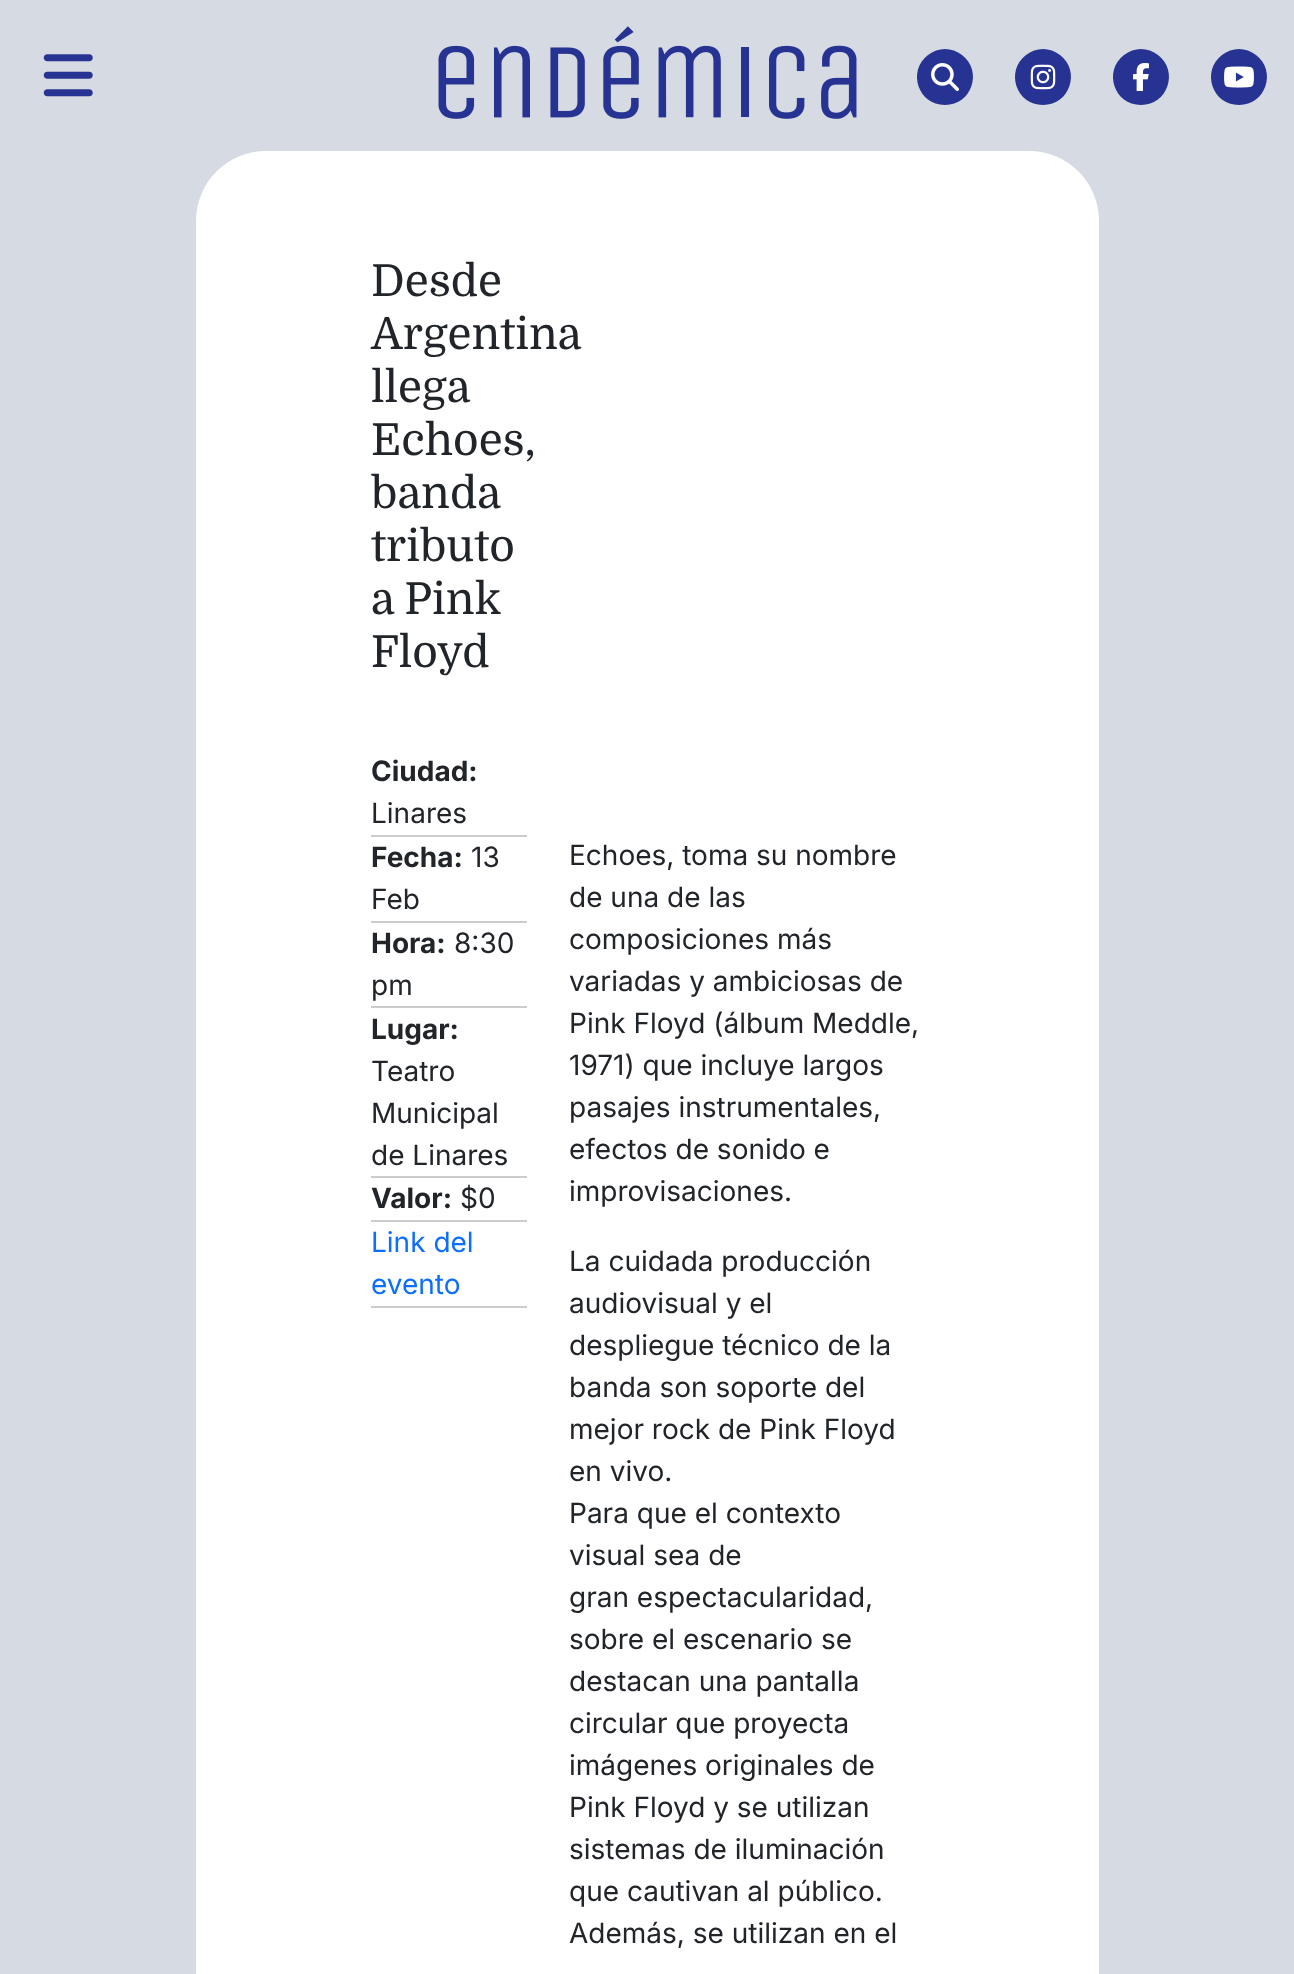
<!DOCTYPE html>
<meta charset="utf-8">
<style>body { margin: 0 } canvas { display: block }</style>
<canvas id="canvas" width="1294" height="1974"></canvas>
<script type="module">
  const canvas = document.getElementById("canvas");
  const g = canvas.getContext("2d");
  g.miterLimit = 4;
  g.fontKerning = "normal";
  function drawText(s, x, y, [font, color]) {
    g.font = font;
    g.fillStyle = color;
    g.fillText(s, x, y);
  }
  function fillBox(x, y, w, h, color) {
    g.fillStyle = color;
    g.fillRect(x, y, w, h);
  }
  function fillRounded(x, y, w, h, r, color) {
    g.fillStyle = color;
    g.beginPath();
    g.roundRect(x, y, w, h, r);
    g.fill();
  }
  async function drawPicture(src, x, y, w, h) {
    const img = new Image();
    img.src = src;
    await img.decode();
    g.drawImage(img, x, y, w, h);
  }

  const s1 = ["44px Domine", "#212529"];
  const s2 = ["bold 28px Inter", "#212529"];
  const s3 = ["28px Inter", "#212529"];
  const s4 = ["28px Inter", "#0D6EFD"];

  fillBox(0, 0, 1294, 1974, "#D6DAE2");
  await drawPicture("pic1.png", 43, 54, 50, 43);
  await drawPicture("pic2.png", 438, 26, 419, 93);
  g.fillStyle = "#273392";
  g.beginPath();
  g.moveTo(945, 105);
  g.bezierCurveTo(972, 105, 983, 71, 962, 55);
  g.bezierCurveTo(957, 51, 951, 49, 945, 49);
  g.bezierCurveTo(939, 49, 933, 51, 928, 55);
  g.bezierCurveTo(907, 71, 918, 105, 945, 105);
  g.closePath();
  g.fill();
  await drawPicture("pic3.png", 931, 63, 28, 28);
  g.beginPath();
  g.moveTo(1043, 105);
  g.bezierCurveTo(1070, 105, 1081, 71, 1060, 55);
  g.bezierCurveTo(1055, 51, 1049, 49, 1043, 49);
  g.bezierCurveTo(1037, 49, 1031, 51, 1026, 55);
  g.bezierCurveTo(1005, 71, 1016, 105, 1043, 105);
  g.closePath();
  g.fill();
  await drawPicture("pic4.png", 1030, 64, 26, 26);
  g.beginPath();
  g.moveTo(1141, 105);
  g.bezierCurveTo(1168, 105, 1179, 71, 1158, 55);
  g.bezierCurveTo(1153, 51, 1147, 49, 1141, 49);
  g.bezierCurveTo(1135, 49, 1129, 51, 1124, 55);
  g.bezierCurveTo(1103, 71, 1114, 105, 1141, 105);
  g.closePath();
  g.fill();
  await drawPicture("pic5.png", 1133, 63, 16, 28);
  g.beginPath();
  g.moveTo(1239, 105);
  g.bezierCurveTo(1266, 105, 1277, 71, 1256, 55);
  g.bezierCurveTo(1251, 51, 1245, 49, 1239, 49);
  g.bezierCurveTo(1233, 49, 1227, 51, 1222, 55);
  g.bezierCurveTo(1201, 71, 1212, 105, 1239, 105);
  g.closePath();
  g.fill();
  await drawPicture("pic6.png", 1224, 66, 30, 22);
  fillRounded(196, 151, 903, 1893, 70, "#FFFFFF");
  drawText("Desde", 371, 296, s1);
  drawText("Argentina", 371, 349, s1);
  drawText("llega", 371, 402, s1);
  drawText("Echoes,", 371, 455, s1);
  drawText("banda", 371, 508, s1);
  drawText("tributo", 371, 561, s1);
  g.wordSpacing = "-1px";
  drawText("a Pink", 371, 614, s1);
  g.wordSpacing = "0px";
  drawText("Floyd", 371, 667, s1);
  fillBox(371, 835, 156, 2, "#CCCCCC");
  drawText("Ciudad:", 371, 781, s2);
  drawText("Linares", 371, 823, s3);
  fillBox(371, 921, 156, 2, "#CCCCCC");
  drawText("Fecha:", 371, 867, s2);
  drawText("13", 471, 867, s3);
  drawText("Feb", 371, 909, s3);
  fillBox(371, 1006, 156, 2, "#CCCCCC");
  drawText("Hora:", 371, 953, s2);
  drawText("8:30", 454, 953, s3);
  drawText("pm", 371, 995, s3);
  fillBox(371, 1176, 156, 2, "#CCCCCC");
  drawText("Lugar:", 371, 1039, s2);
  drawText("Teatro", 371, 1081, s3);
  drawText("Municipal", 371, 1123, s3);
  drawText("de Linares", 371, 1165, s3);
  fillBox(371, 1220, 156, 2, "#CCCCCC");
  drawText("Valor:", 371, 1208, s2);
  drawText("$0", 460, 1208, s3);
  fillBox(371, 1306, 156, 2, "#CCCCCC");
  drawText("Link del", 371, 1252, s4);
  drawText("evento", 371, 1294, s4);
  drawText("Echoes, toma su nombre", 569, 865, s3);
  drawText("de una de las", 569, 907, s3);
  drawText("composiciones más", 569, 949, s3);
  drawText("variadas y ambiciosas de", 569, 991, s3);
  drawText("Pink Floyd (álbum Meddle,", 569, 1033, s3);
  drawText("1971) que incluye largos", 569, 1075, s3);
  drawText("pasajes instrumentales,", 569, 1117, s3);
  drawText("efectos de sonido e", 569, 1159, s3);
  drawText("improvisaciones.", 569, 1201, s3);
  drawText("La cuidada producción", 569, 1271, s3);
  drawText("audiovisual y el", 569, 1313, s3);
  drawText("despliegue técnico de la", 569, 1355, s3);
  drawText("banda son soporte del", 569, 1397, s3);
  drawText("mejor rock de Pink Floyd", 569, 1439, s3);
  drawText("en vivo.", 569, 1481, s3);
  drawText("Para que el contexto", 569, 1523, s3);
  drawText("visual sea de", 569, 1565, s3);
  drawText("gran espectacularidad,", 569, 1607, s3);
  drawText("sobre el escenario se", 569, 1649, s3);
  drawText("destacan una pantalla", 569, 1691, s3);
  drawText("circular que proyecta", 569, 1733, s3);
  drawText("imágenes originales de", 569, 1775, s3);
  drawText("Pink Floyd y se utilizan", 569, 1817, s3);
  drawText("sistemas de iluminación", 569, 1859, s3);
  drawText("que cautivan al público.", 569, 1901, s3);
  drawText("Además, se utilizan en el", 569, 1943, s3);
</script>
